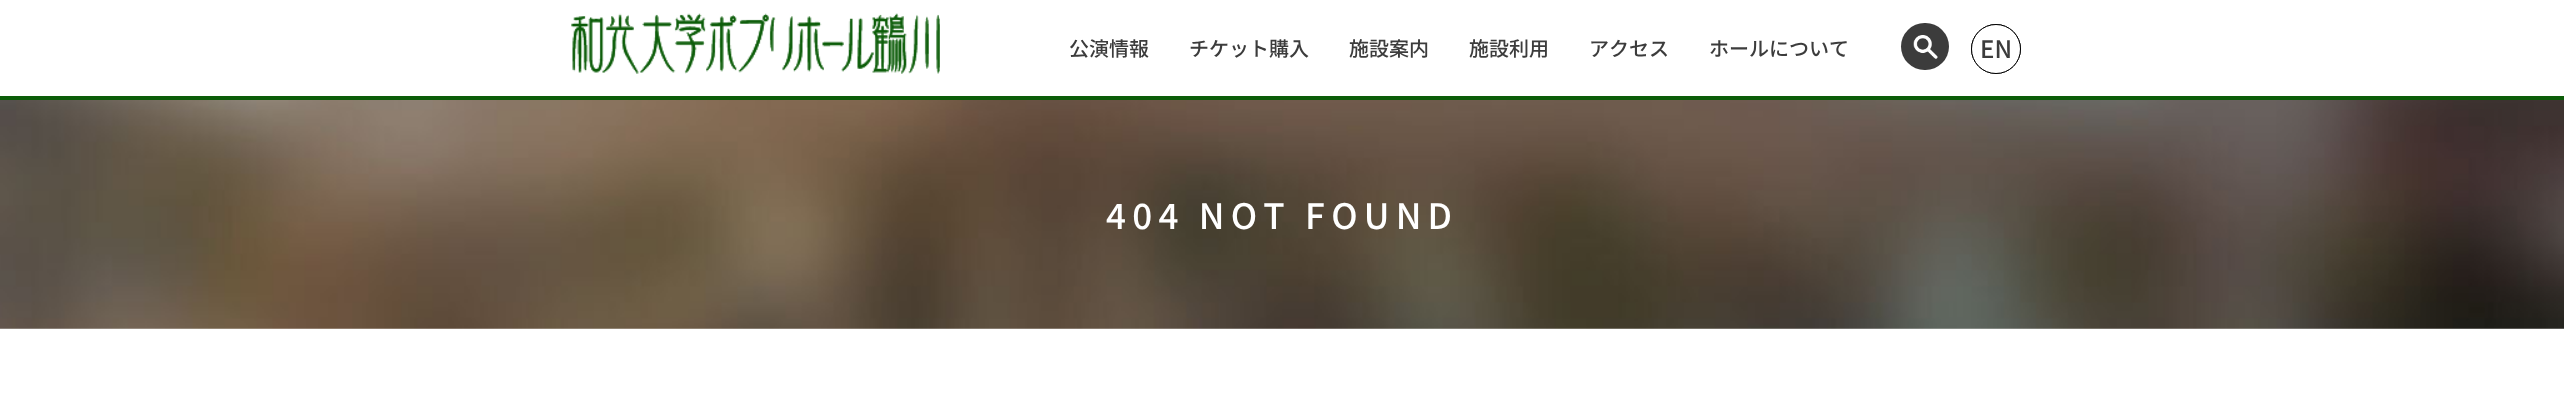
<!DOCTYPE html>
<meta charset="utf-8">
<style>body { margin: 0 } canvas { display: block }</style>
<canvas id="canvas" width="2564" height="399"></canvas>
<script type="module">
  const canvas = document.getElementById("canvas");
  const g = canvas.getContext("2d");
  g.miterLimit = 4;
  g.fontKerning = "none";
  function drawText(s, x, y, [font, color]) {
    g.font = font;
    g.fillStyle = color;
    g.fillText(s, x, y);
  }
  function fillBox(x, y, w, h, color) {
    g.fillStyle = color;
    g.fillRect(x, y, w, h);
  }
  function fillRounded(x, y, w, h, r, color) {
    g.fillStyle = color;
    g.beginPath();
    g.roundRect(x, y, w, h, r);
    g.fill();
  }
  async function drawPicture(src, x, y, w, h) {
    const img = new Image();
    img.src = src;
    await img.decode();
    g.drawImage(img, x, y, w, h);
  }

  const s1 = ["500 20px Noto Sans JP", "#3C3C3C"];
  const s2 = ["500 24px Noto Sans JP", "#3C3C3C"];
  const s3 = ["500 35px Noto Sans JP", "#FFFFFF"];

  fillBox(0, 0, 2564, 399, "#FFFFFF");
  fillBox(0, 96, 2564, 4, "#0B5C08");
  await drawPicture("pic1.png", 571, 13, 369, 61);
  drawText("公演情報", 1069, 56, s1);
  drawText("チケット購入", 1189, 56, s1);
  drawText("施設案内", 1349, 56, s1);
  drawText("施設利用", 1469, 56, s1);
  drawText("アクセス", 1589, 56, s1);
  drawText("ホールについて", 1709, 56, s1);
  fillRounded(1901, 23, 48, 47, 23.5, "#3C3C3C");
  await drawPicture("pic2.png", 1913, 35, 25, 24);
  g.beginPath();
  g.arc(1996, 49, 24.5, 0, Math.PI * 2);
  g.strokeStyle = "#000000";
  g.stroke();
  g.fillStyle = "#FFFFFF";
  g.beginPath();
  g.arc(1996, 49, 24.5, 0, Math.PI * 2);
  g.fill();
  g.stroke();
  drawText("EN", 1980, 58, s2);
  await drawPicture("pic3.png", 0, 100, 2564, 229);
  g.letterSpacing = "6.25px";
  drawText("404 NOT FOUND", 1106, 229, s3);
</script>
